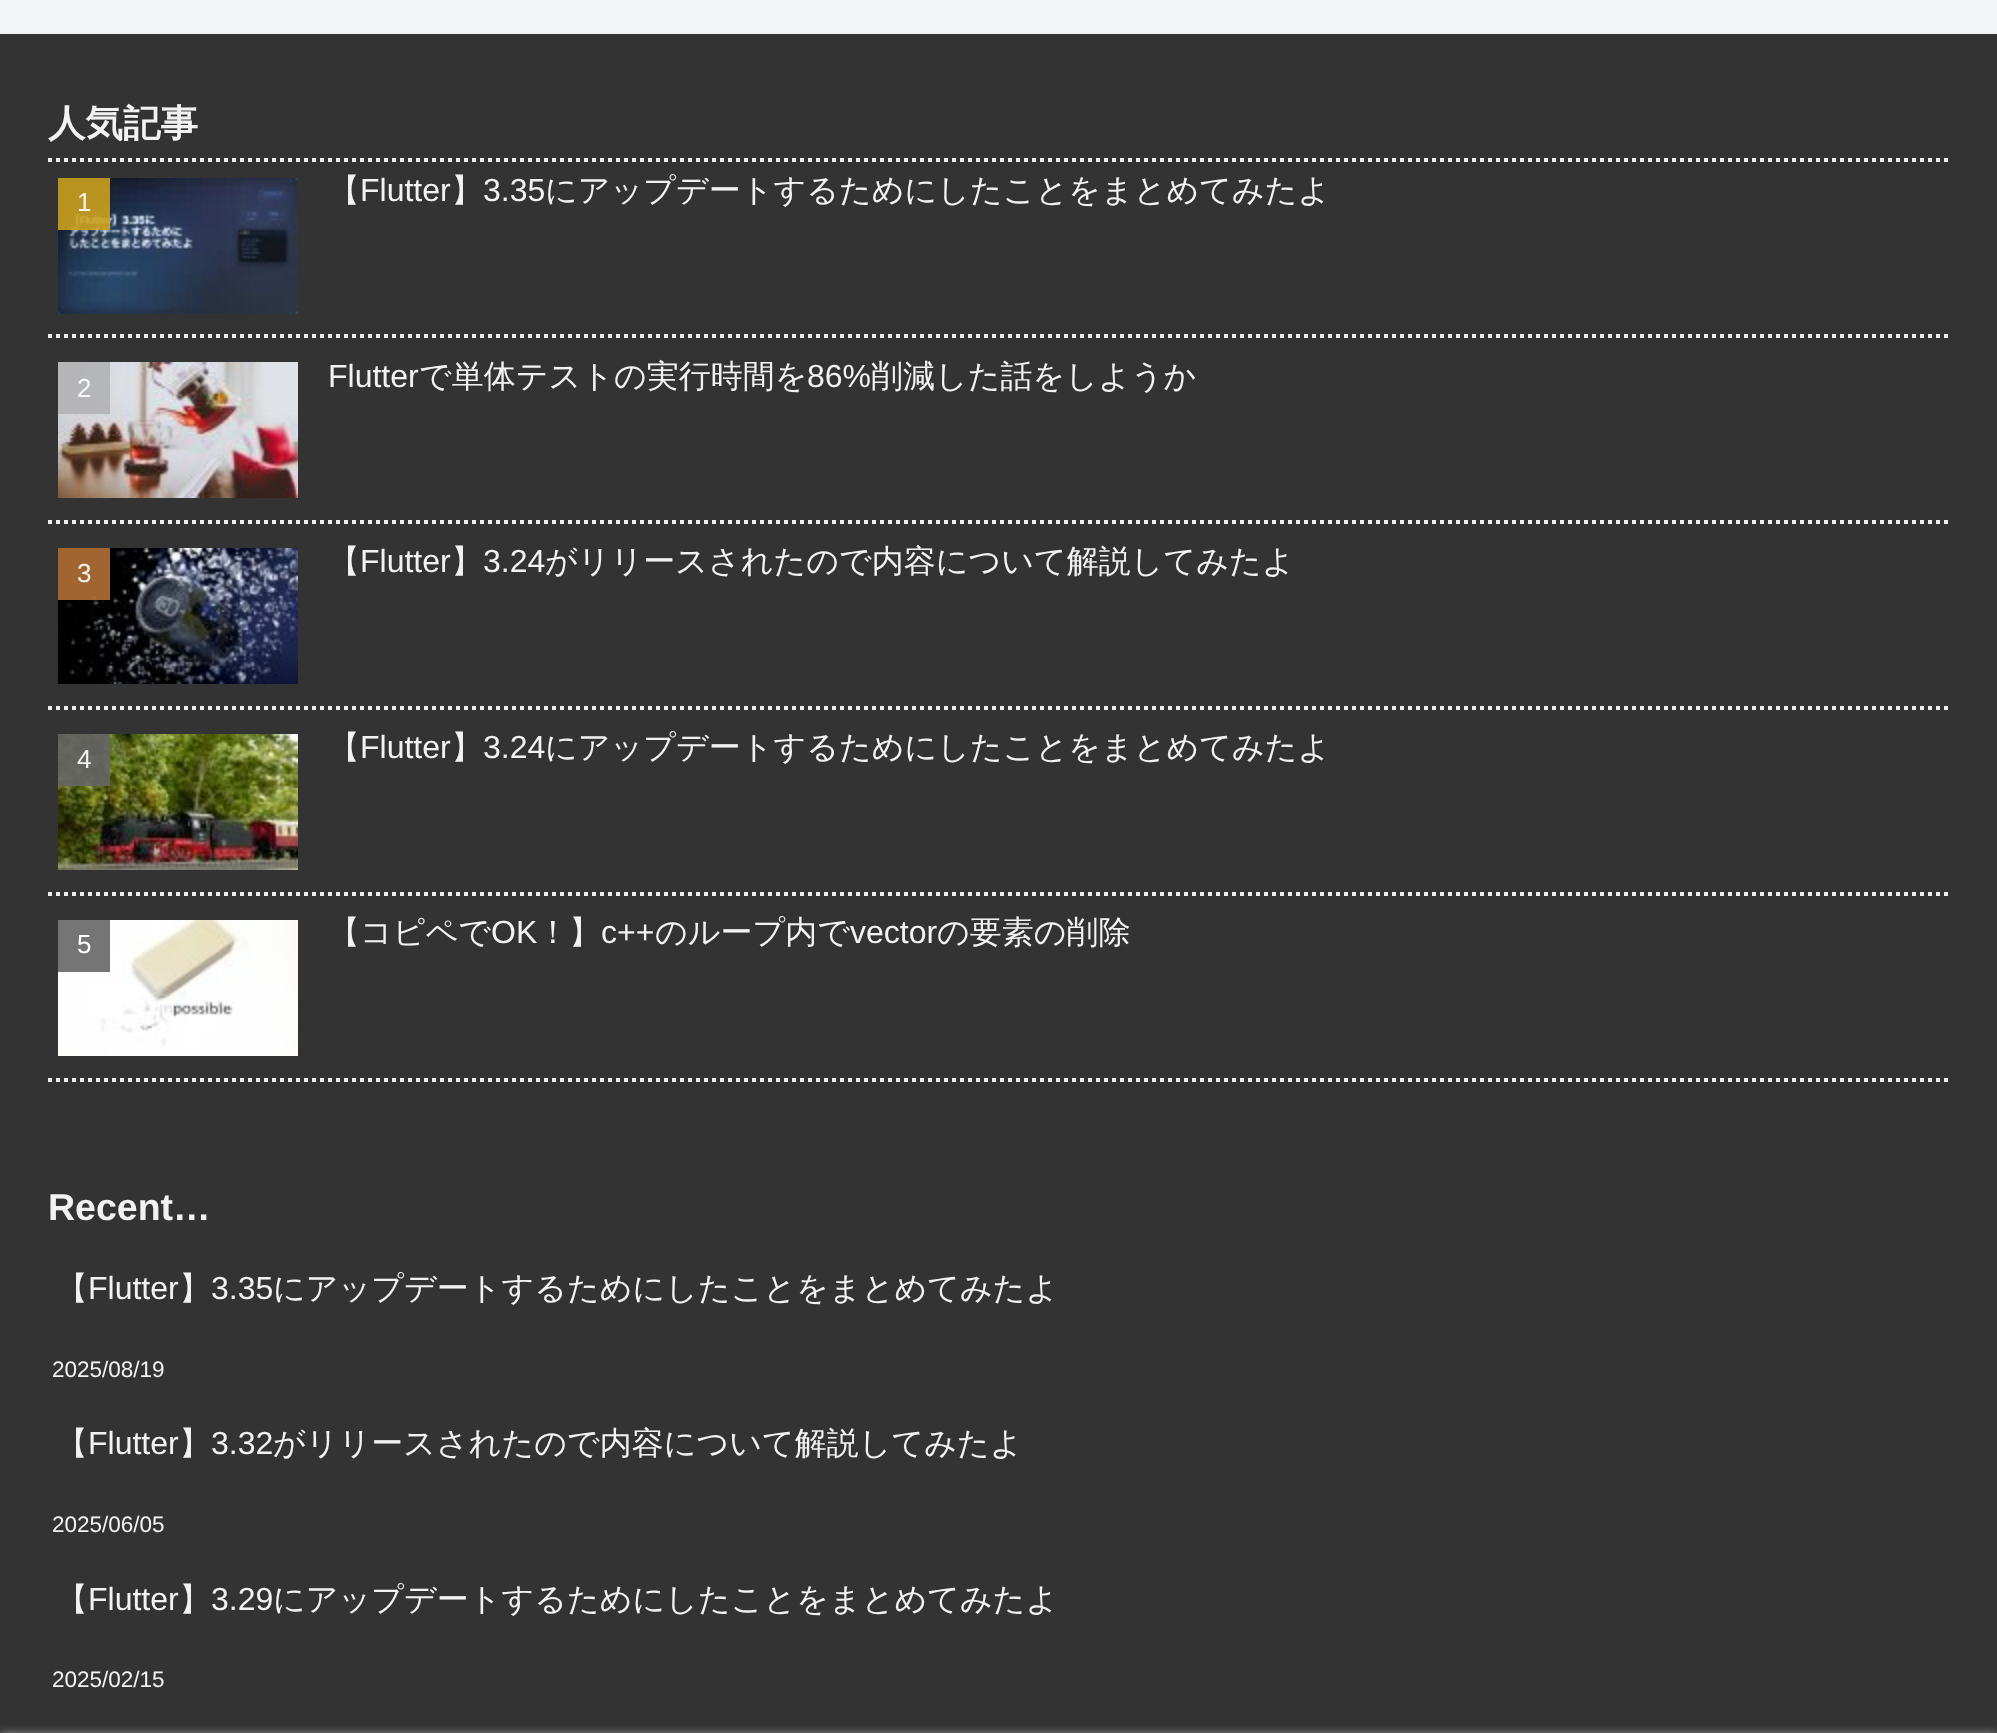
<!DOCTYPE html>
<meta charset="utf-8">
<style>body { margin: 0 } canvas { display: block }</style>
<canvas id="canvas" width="1997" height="1733"></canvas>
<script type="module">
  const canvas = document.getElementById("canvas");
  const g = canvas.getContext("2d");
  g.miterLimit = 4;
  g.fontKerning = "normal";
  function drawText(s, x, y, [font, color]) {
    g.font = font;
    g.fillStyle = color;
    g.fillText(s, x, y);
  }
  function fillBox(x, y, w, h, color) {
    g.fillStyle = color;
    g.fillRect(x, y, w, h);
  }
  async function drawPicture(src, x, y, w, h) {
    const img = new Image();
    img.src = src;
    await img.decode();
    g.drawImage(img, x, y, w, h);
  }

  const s1 = ["bold 37.5px WenQuanYi Zen Hei", "#F2F2F2"];
  const s2 = ["26px Liberation Sans", "#F8F4E9"];
  const s3 = ["500 32px WenQuanYi Zen Hei", "#F2F2F2"];
  const s4 = ["32px Liberation Sans", "#F2F2F2"];
  const s5 = ["26px Liberation Sans", "#F8F8F8"];
  const s6 = ["26px Liberation Sans", "#F2F2F2"];
  const s7 = ["26px Liberation Sans", "#FFFFFF"];
  const s8 = ["bold 37.5px Liberation Sans", "#F2F2F2"];
  const s9 = ["22.5px Liberation Sans", "#F2F2F2"];

  fillBox(0, 0, 1997, 1733, "#F4F5F7");
  fillBox(0, 34, 1997, 1699, "#333333");
  drawText("人気記事", 48, 136, s1);
  g.beginPath();
  g.moveTo(48, 160);
  g.lineTo(1950, 160);
  g.strokeStyle = "#EEEEEE";
  g.lineWidth = 4;
  g.setLineDash([4, 4]);
  g.stroke();
  g.beginPath();
  g.moveTo(48, 336);
  g.lineTo(1950, 336);
  g.stroke();
  await drawPicture("pic1.png", 58, 178, 240, 136);
  fillBox(58, 178, 52, 52, "rgba(204, 161, 31, 0.9)");
  drawText("1", 77, 211, s2);
  drawText("【", 328, 201, s3);
  drawText("Flutter", 360, 201, s4);
  drawText("】", 451, 201, s3);
  drawText("3.35", 483, 201, s4);
  drawText("にアップデートするためにしたことをまとめてみたよ", 545, 201, s3);
  g.beginPath();
  g.moveTo(48, 522);
  g.lineTo(1950, 522);
  g.stroke();
  await drawPicture("pic2.png", 58, 362, 240, 136);
  fillBox(58, 362, 52, 52, "rgba(177, 177, 179, 0.9)");
  drawText("2", 77, 397, s5);
  drawText("Flutter", 328, 387, s4);
  drawText("で単体テストの実行時間を", 419, 387, s3);
  drawText("86%", 807, 387, s4);
  drawText("削減した話をしようか", 871, 387, s3);
  g.beginPath();
  g.moveTo(48, 708);
  g.lineTo(1950, 708);
  g.stroke();
  await drawPicture("pic3.png", 58, 548, 240, 136);
  fillBox(58, 548, 52, 52, "rgba(179, 112, 54, 0.9)");
  drawText("3", 77, 582, s2);
  drawText("【", 328, 572, s3);
  drawText("Flutter", 360, 572, s4);
  drawText("】", 451, 572, s3);
  drawText("3.24", 483, 572, s4);
  drawText("がリリースされたので内容について解説してみたよ", 545, 572, s3);
  g.beginPath();
  g.moveTo(48, 894);
  g.lineTo(1950, 894);
  g.stroke();
  await drawPicture("pic4.png", 58, 734, 240, 136);
  fillBox(58, 734, 52, 52, "rgba(102, 102, 102, 0.9)");
  drawText("4", 77, 768, s6);
  drawText("【", 328, 758, s3);
  drawText("Flutter", 360, 758, s4);
  drawText("】", 451, 758, s3);
  drawText("3.24", 483, 758, s4);
  drawText("にアップデートするためにしたことをまとめてみたよ", 545, 758, s3);
  g.beginPath();
  g.moveTo(48, 1080);
  g.lineTo(1950, 1080);
  g.stroke();
  await drawPicture("pic5.png", 58, 920, 240, 136);
  fillBox(58, 920, 52, 52, "#757575");
  drawText("5", 77, 953, s7);
  drawText("【コピペで", 328, 943, s3);
  drawText("OK", 491, 943, s4);
  drawText("！】", 537, 943, s3);
  drawText("c++", 601, 943, s4);
  drawText("のループ内で", 655, 943, s3);
  drawText("vector", 850, 943, s4);
  drawText("の要素の削除", 937, 943, s3);
  drawText("Recent…", 48, 1220, s8);
  drawText("【", 56, 1299, s3);
  drawText("Flutter", 88, 1299, s4);
  drawText("】", 179, 1299, s3);
  drawText("3.35", 211, 1299, s4);
  drawText("にアップデートするためにしたことをまとめてみたよ", 273, 1299, s3);
  drawText("2025/08/19", 52, 1377, s9);
  drawText("【", 56, 1454, s3);
  drawText("Flutter", 88, 1454, s4);
  drawText("】", 179, 1454, s3);
  drawText("3.32", 211, 1454, s4);
  drawText("がリリースされたので内容について解説してみたよ", 273, 1454, s3);
  drawText("2025/06/05", 52, 1532, s9);
  drawText("【", 56, 1610, s3);
  drawText("Flutter", 88, 1610, s4);
  drawText("】", 179, 1610, s3);
  drawText("3.29", 211, 1610, s4);
  drawText("にアップデートするためにしたことをまとめてみたよ", 273, 1610, s3);
  drawText("2025/02/15", 52, 1687, s9);
  g.fillStyle = "#A9A9A9";
  g.filter = "blur(5px)";
  g.beginPath();
  g.rect(0, 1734, 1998, 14);
  g.fill();
  g.filter = "none";
</script>
